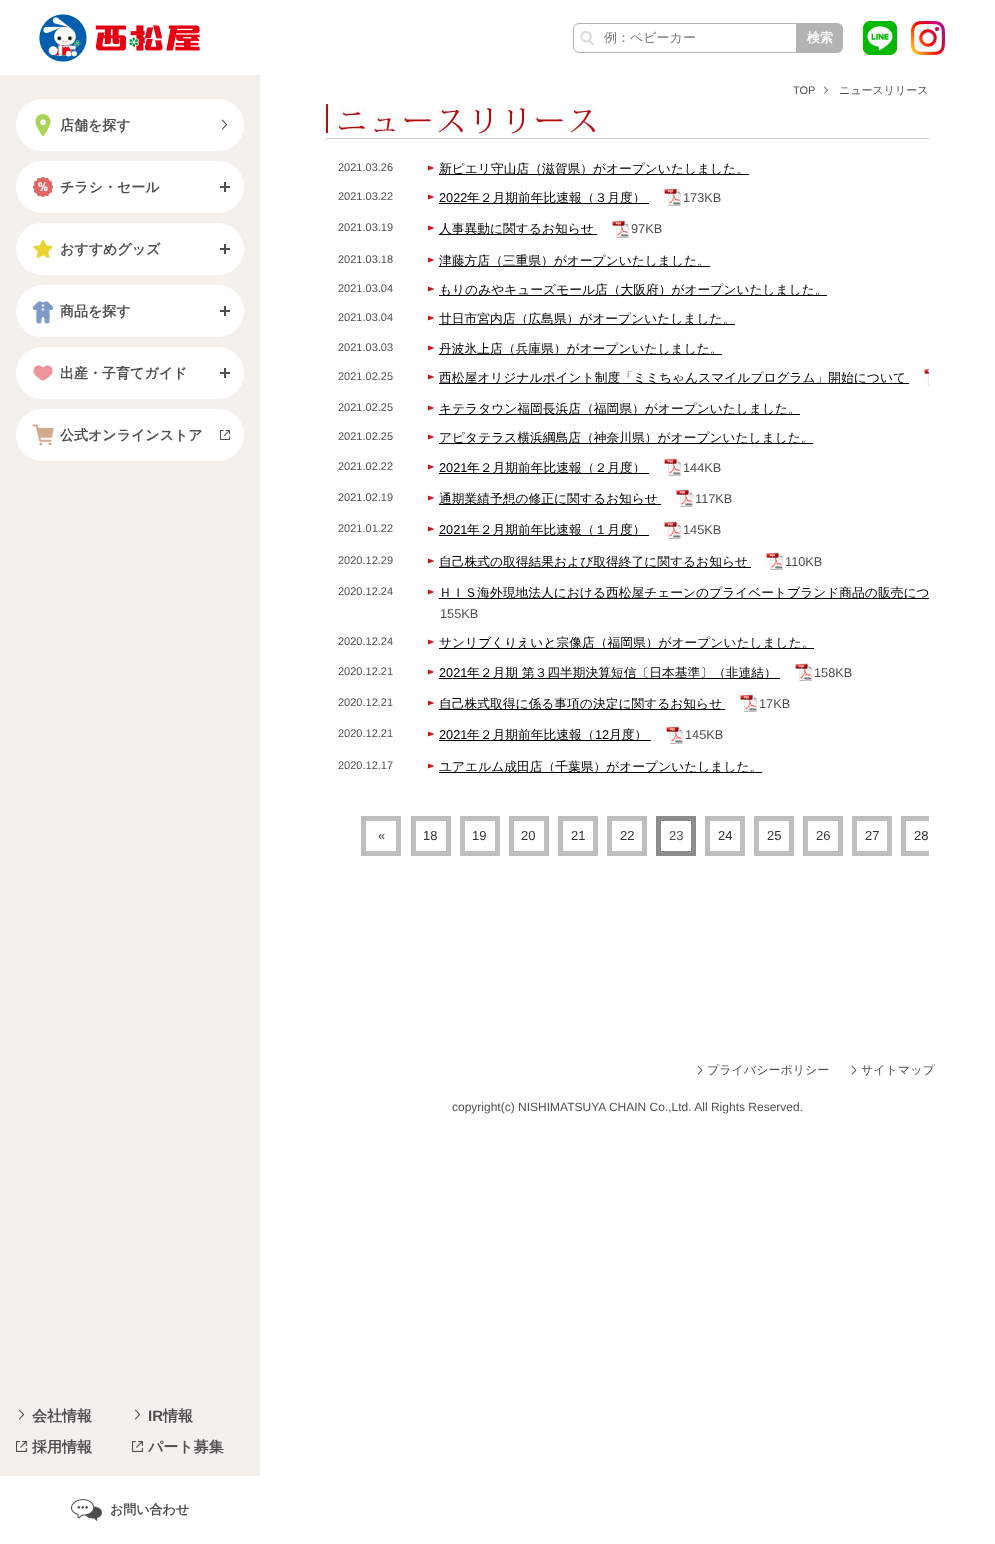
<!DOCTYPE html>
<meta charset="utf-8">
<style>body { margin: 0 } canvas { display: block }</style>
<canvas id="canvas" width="995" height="1544"></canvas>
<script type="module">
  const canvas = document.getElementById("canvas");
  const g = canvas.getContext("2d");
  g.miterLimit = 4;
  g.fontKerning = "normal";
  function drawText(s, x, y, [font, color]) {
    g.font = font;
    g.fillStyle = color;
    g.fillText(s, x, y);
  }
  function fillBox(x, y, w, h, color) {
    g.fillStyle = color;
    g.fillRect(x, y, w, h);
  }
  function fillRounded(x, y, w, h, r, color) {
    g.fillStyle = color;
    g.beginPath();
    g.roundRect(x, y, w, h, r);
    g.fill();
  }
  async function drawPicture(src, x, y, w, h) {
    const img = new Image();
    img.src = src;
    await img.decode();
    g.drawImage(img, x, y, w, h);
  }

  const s1 = ["500 13px WenQuanYi Zen Hei", "#757575"];
  const s2 = ["bold 13px WenQuanYi Zen Hei", "#FFFFFF"];
  const s3 = ["bold 14px WenQuanYi Zen Hei", "#4F4F4F"];
  const s4 = ["bold 15px WenQuanYi Zen Hei", "#4F4F4F"];
  const s5 = ["bold 15px Liberation Sans", "#4F4F4F"];
  const s6 = ["bold 13px WenQuanYi Zen Hei", "#4F4F4F"];
  const s7 = ["11px Liberation Sans", "#4F4F4F"];
  const s8 = ["500 11px WenQuanYi Zen Hei", "#4F4F4F"];
  const s9 = ["500 12.75px WenQuanYi Zen Hei", "#000000"];
  const s10 = ["12.75px Liberation Sans", "#000000"];
  const s11 = ["12.75px Liberation Sans", "#4F4F4F"];
  const s12 = ["13px Liberation Sans", "#333333"];
  const s13 = ["13px Liberation Sans", "#4F4F4F"];
  const s14 = ["500 12px WenQuanYi Zen Hei", "#4F4F4F"];
  const s15 = ["12px Liberation Sans", "#4F4F4F"];

  fillBox(0, 0, 995, 1544, "#FFFFFF");
  await drawPicture("pic1.png", 39, 14, 161, 48);
  g.beginPath();
  g.roundRect(573.5, 23.5, 223, 29, [5.5, 0, 0, 5.5]);
  g.strokeStyle = "#B3B3B4";
  g.stroke();
  await drawPicture("pic2.png", 580, 30, 14, 16);
  drawText("例：ベビーカー", 604, 42, s1);
  g.fillStyle = "#B3B3B4";
  g.beginPath();
  g.roundRect(797, 23, 46, 30, [0, 6, 6, 0]);
  g.fill();
  drawText("検索", 807, 42, s2);
  await drawPicture("pic3.png", 863, 21, 34, 34);
  await drawPicture("pic4.png", 911, 21, 34, 34);
  fillBox(0, 75, 260, 1401, "#F4F0EC");
  fillRounded(16, 99, 228, 52, 26, "#FFFFFF");
  await drawPicture("pic5.png", 35, 114, 16, 22);
  drawText("店舗を探す", 60, 130, s3);
  await drawPicture("pic6.png", 221, 119, 7, 11);
  fillRounded(16, 161, 228, 52, 26, "#FFFFFF");
  await drawPicture("pic7.png", 33, 177, 21, 20);
  drawText("チラシ・セール", 60, 192, s3);
  fillBox(224, 182, 2, 10, "#4F4F4F");
  fillBox(220, 186, 10, 2, "#4F4F4F");
  fillRounded(16, 223, 228, 52, 26, "#FFFFFF");
  await drawPicture("pic8.png", 33, 240, 20, 18);
  drawText("おすすめグッズ", 60, 254, s3);
  fillBox(224, 244, 2, 10, "#4F4F4F");
  fillBox(220, 248, 10, 2, "#4F4F4F");
  fillRounded(16, 285, 228, 52, 26, "#FFFFFF");
  await drawPicture("pic9.png", 33, 301, 21, 23);
  drawText("商品を探す", 60, 316, s3);
  fillBox(224, 306, 2, 10, "#4F4F4F");
  fillBox(220, 310, 10, 2, "#4F4F4F");
  fillRounded(16, 347, 228, 52, 26, "#FFFFFF");
  await drawPicture("pic10.png", 33, 365, 20, 16);
  drawText("出産・子育てガイド", 60, 378, s3);
  fillBox(224, 368, 2, 10, "#4F4F4F");
  fillBox(220, 372, 10, 2, "#4F4F4F");
  fillRounded(16, 409, 228, 52, 26, "#FFFFFF");
  await drawPicture("pic11.png", 32, 424, 22, 22);
  drawText("公式オンラインストア", 60, 440, s3);
  await drawPicture("pic12.png", 220, 430, 10, 10);
  await drawPicture("pic13.png", 18, 1409, 7, 11);
  drawText("会社情報", 32, 1421, s4);
  await drawPicture("pic13.png", 134, 1409, 7, 11);
  drawText("IR", 148, 1421, s5);
  drawText("情報", 163, 1421, s4);
  await drawPicture("pic14.png", 16, 1441, 11, 11);
  drawText("採用情報", 32, 1452, s4);
  await drawPicture("pic14.png", 132, 1441, 11, 11);
  drawText("パート募集", 148, 1452, s4);
  await drawPicture("pic15.png", 71, 1499, 31, 22);
  drawText("お問い合わせ", 110, 1514, s6);
  drawText("TOP", 793, 94, s7);
  await drawPicture("pic16.png", 824, 86, 4, 8);
  drawText("ニュースリリース", 839, 94, s8);
  await drawPicture("pic17.png", 326, 104, 603, 35);
  drawText("2021.03.26", 338, 171, s7);
  await drawPicture("pic18.png", 428, 165, 6, 6);
  fillBox(439, 174, 310, 1, "#000000");
  drawText("新ピエリ守山店（滋賀県）がオープンいたしました。", 439, 173, s9);
  drawText("2021.03.22", 338, 200, s7);
  await drawPicture("pic18.png", 428, 194, 6, 6);
  drawText("2022", 439, 202, s10);
  fillBox(439, 203, 210, 1, "#000000");
  drawText("年２月期前年比速報（３月度）", 467, 202, s9);
  await drawPicture("pic19.png", 664, 188, 17, 18);
  drawText("173KB", 683, 202, s11);
  drawText("2021.03.19", 338, 231, s7);
  await drawPicture("pic18.png", 428, 225, 6, 6);
  fillBox(439, 234, 158, 1, "#000000");
  drawText("人事異動に関するお知らせ", 439, 233, s9);
  await drawPicture("pic19.png", 612, 220, 17, 18);
  drawText("97KB", 631, 233, s11);
  drawText("2021.03.18", 338, 263, s7);
  await drawPicture("pic18.png", 428, 257, 6, 6);
  fillBox(439, 266, 271, 1, "#000000");
  drawText("津藤方店（三重県）がオープンいたしました。", 439, 265, s9);
  drawText("2021.03.04", 338, 292, s7);
  await drawPicture("pic18.png", 428, 286, 6, 6);
  fillBox(439, 295, 388, 1, "#000000");
  drawText("もりのみやキューズモール店（大阪府）がオープンいたしました。", 439, 294, s9);
  drawText("2021.03.04", 338, 321, s7);
  await drawPicture("pic18.png", 428, 315, 6, 6);
  fillBox(439, 324, 296, 1, "#000000");
  drawText("廿日市宮内店（広島県）がオープンいたしました。", 439, 323, s9);
  drawText("2021.03.03", 338, 351, s7);
  await drawPicture("pic18.png", 428, 345, 6, 6);
  fillBox(439, 354, 283, 1, "#000000");
  drawText("丹波氷上店（兵庫県）がオープンいたしました。", 439, 353, s9);
  drawText("2021.02.25", 338, 380, s7);
  await drawPicture("pic18.png", 428, 374, 6, 6);
  fillBox(439, 383, 470, 1, "#000000");
  drawText("西松屋オリジナルポイント制度「ミミちゃんスマイルプログラム」開始について", 439, 382, s9);
  await drawPicture("pic20.png", 924, 368, 5, 18);
  drawText("2021.02.25", 338, 411, s7);
  await drawPicture("pic18.png", 428, 405, 6, 6);
  fillBox(439, 414, 361, 1, "#000000");
  drawText("キテラタウン福岡長浜店（福岡県）がオープンいたしました。", 439, 413, s9);
  drawText("2021.02.25", 338, 440, s7);
  await drawPicture("pic18.png", 428, 434, 6, 6);
  fillBox(439, 443, 374, 1, "#000000");
  drawText("アピタテラス横浜綱島店（神奈川県）がオープンいたしました。", 439, 442, s9);
  drawText("2021.02.22", 338, 470, s7);
  await drawPicture("pic18.png", 428, 464, 6, 6);
  drawText("2021", 439, 472, s10);
  fillBox(439, 473, 210, 1, "#000000");
  drawText("年２月期前年比速報（２月度）", 467, 472, s9);
  await drawPicture("pic19.png", 664, 458, 17, 18);
  drawText("144KB", 683, 472, s11);
  drawText("2021.02.19", 338, 501, s7);
  await drawPicture("pic18.png", 428, 495, 6, 6);
  fillBox(439, 504, 222, 1, "#000000");
  drawText("通期業績予想の修正に関するお知らせ", 439, 503, s9);
  await drawPicture("pic19.png", 676, 489, 17, 18);
  drawText("117KB", 695, 503, s11);
  drawText("2021.01.22", 338, 532, s7);
  await drawPicture("pic18.png", 428, 526, 6, 6);
  drawText("2021", 439, 534, s10);
  fillBox(439, 535, 210, 1, "#000000");
  drawText("年２月期前年比速報（１月度）", 467, 534, s9);
  await drawPicture("pic19.png", 664, 521, 17, 18);
  drawText("145KB", 683, 534, s11);
  drawText("2020.12.29", 338, 564, s7);
  await drawPicture("pic18.png", 428, 558, 6, 6);
  fillBox(439, 567, 312, 1, "#000000");
  drawText("自己株式の取得結果および取得終了に関するお知らせ", 439, 566, s9);
  await drawPicture("pic19.png", 766, 552, 17, 18);
  drawText("110KB", 785, 566, s11);
  drawText("2020.12.24", 338, 595, s7);
  await drawPicture("pic18.png", 428, 589, 6, 6);
  fillBox(439, 598, 490, 1, "#000000");
  drawText("ＨＩＳ海外現地法人における西松屋チェーンのプライベートブランド商品の販売につ", 439, 597, s9);
  drawText("155KB", 440, 618, s11);
  drawText("2020.12.24", 338, 645, s7);
  await drawPicture("pic18.png", 428, 639, 6, 6);
  fillBox(439, 648, 375, 1, "#000000");
  drawText("サンリブくりえいと宗像店（福岡県）がオープンいたしました。", 439, 647, s9);
  drawText("2020.12.21", 338, 675, s7);
  await drawPicture("pic18.png", 428, 669, 6, 6);
  drawText("2021", 439, 677, s10);
  fillBox(439, 678, 341, 1, "#000000");
  drawText("年２月期 第３四半期決算短信〔日本基準〕（非連結）", 467, 677, s9);
  await drawPicture("pic19.png", 795, 663, 17, 18);
  drawText("158KB", 814, 677, s11);
  drawText("2020.12.21", 338, 706, s7);
  await drawPicture("pic18.png", 428, 700, 6, 6);
  fillBox(439, 709, 286, 1, "#000000");
  drawText("自己株式取得に係る事項の決定に関するお知らせ", 439, 708, s9);
  await drawPicture("pic19.png", 740, 694, 17, 18);
  drawText("17KB", 759, 708, s11);
  drawText("2020.12.21", 338, 737, s7);
  await drawPicture("pic18.png", 428, 731, 6, 6);
  drawText("2021", 439, 739, s10);
  fillBox(439, 740, 212, 1, "#000000");
  drawText("年２月期前年比速報（", 467, 739, s9);
  drawText("12", 595, 739, s10);
  drawText("月度）", 609, 739, s9);
  await drawPicture("pic19.png", 666, 726, 17, 18);
  drawText("145KB", 685, 739, s11);
  drawText("2020.12.17", 338, 769, s7);
  await drawPicture("pic18.png", 428, 763, 6, 6);
  fillBox(439, 772, 323, 1, "#000000");
  drawText("ユアエルム成田店（千葉県）がオープンいたしました。", 439, 771, s9);
  g.strokeStyle = "#BEBEBE";
  g.lineWidth = 5;
  g.strokeRect(363.5, 818.5, 35, 35);
  drawText("«", 378, 840, s12);
  g.strokeRect(413.5, 818.5, 35, 35);
  drawText("18", 423, 840, s12);
  g.strokeRect(462.5, 818.5, 35, 35);
  drawText("19", 472, 840, s12);
  g.strokeRect(511.5, 818.5, 35, 35);
  drawText("20", 521, 840, s12);
  g.strokeRect(560.5, 818.5, 35, 35);
  drawText("21", 571, 840, s12);
  g.strokeRect(609.5, 818.5, 35, 35);
  drawText("22", 620, 840, s12);
  g.strokeStyle = "#8C8C8C";
  g.strokeRect(658.5, 818.5, 35, 35);
  drawText("23", 669, 840, s13);
  g.strokeStyle = "#BEBEBE";
  g.strokeRect(707.5, 818.5, 35, 35);
  drawText("24", 718, 840, s12);
  g.strokeRect(756.5, 818.5, 35, 35);
  drawText("25", 767, 840, s12);
  g.strokeRect(805.5, 818.5, 35, 35);
  drawText("26", 816, 840, s12);
  g.strokeRect(854.5, 818.5, 35, 35);
  drawText("27", 865, 840, s12);
  g.save();
  g.beginPath();
  g.rect(326, 104, 603, 792);
  g.clip();
  g.strokeRect(903.5, 818.5, 35, 35);
  g.restore();
  drawText("28", 914, 840, s12);
  await drawPicture("pic21.png", 697, 1065, 6, 10);
  drawText("プライバシーポリシー", 707, 1074, s14);
  await drawPicture("pic21.png", 851, 1065, 6, 10);
  drawText("サイトマップ", 861, 1074, s14);
  drawText("copyright(c) NISHIMATSUYA CHAIN Co.,Ltd. All Rights Reserved.", 452, 1111, s15);
</script>
